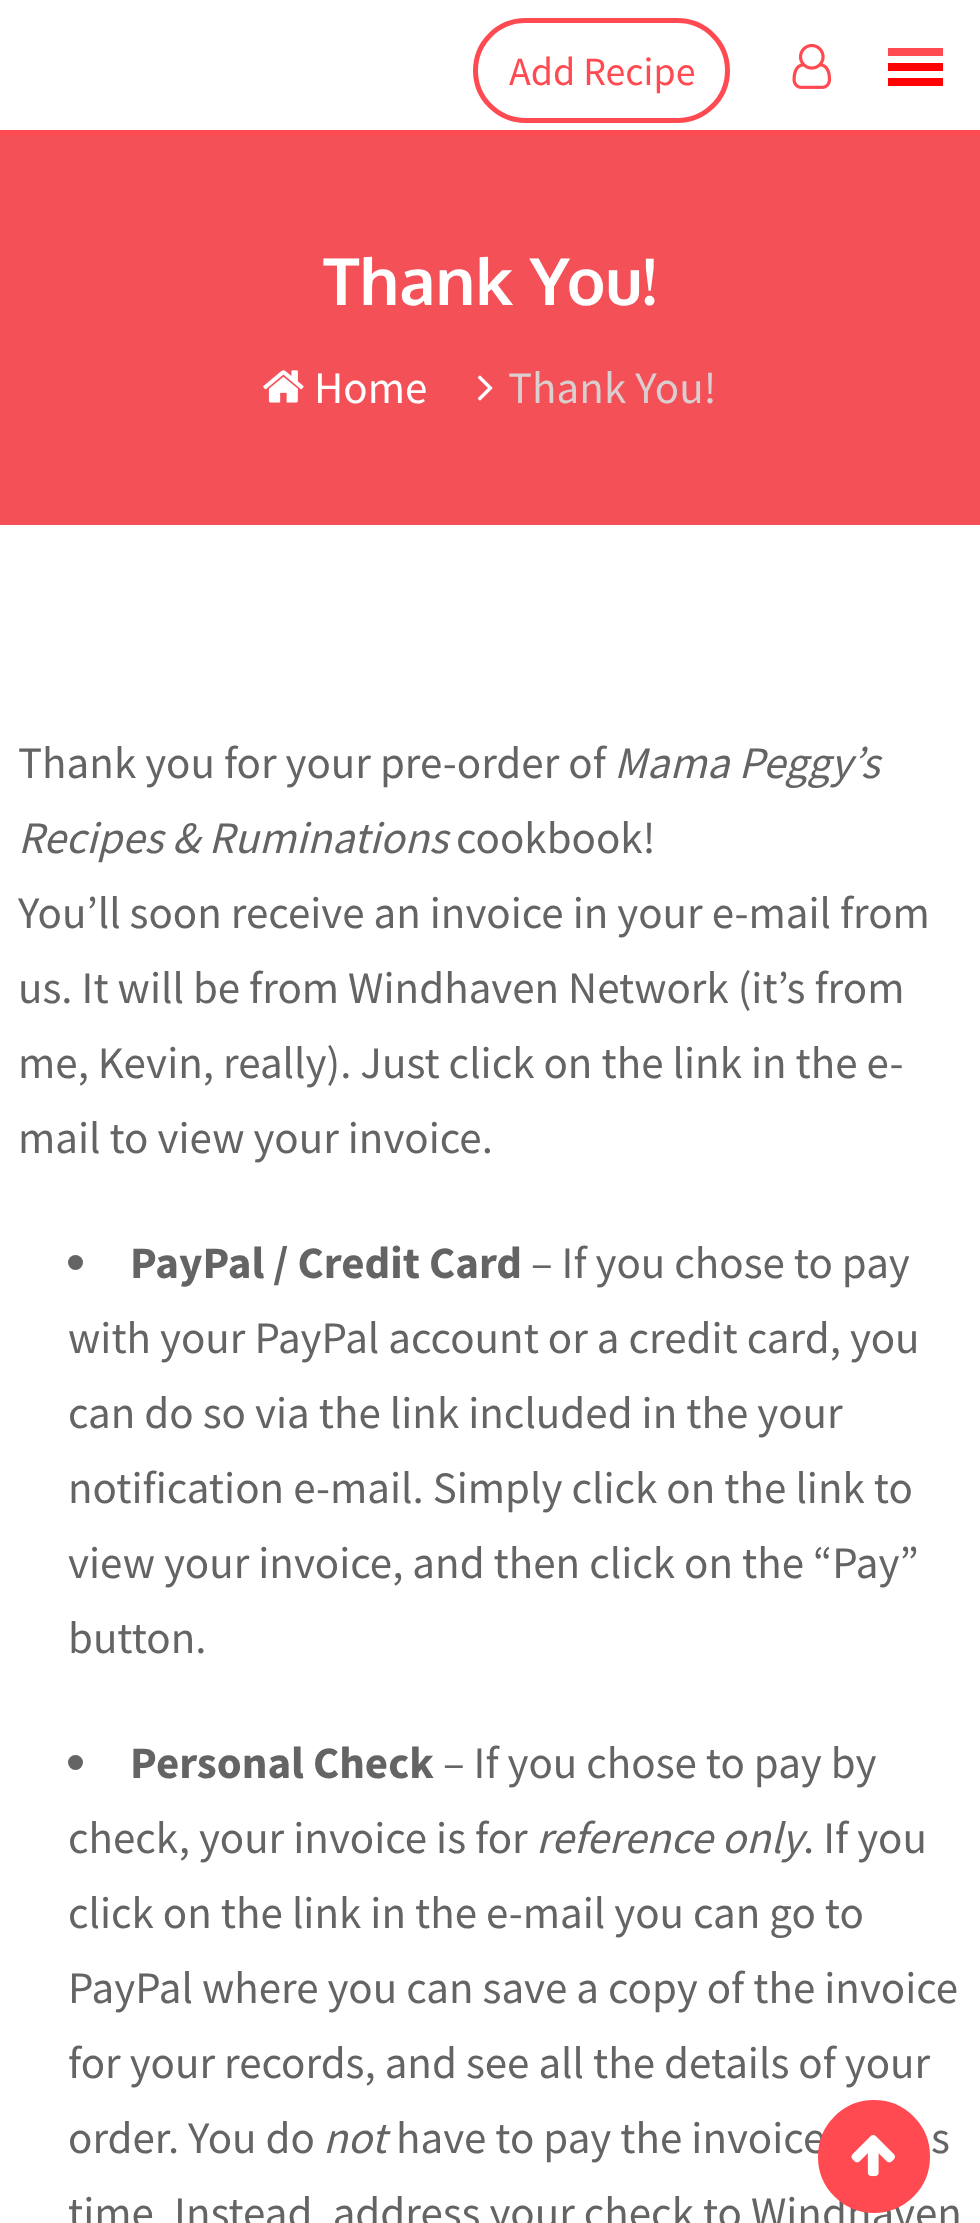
<!DOCTYPE html>
<meta charset="utf-8">
<style>body { margin: 0 } canvas { display: block }</style>
<canvas id="canvas" width="980" height="2223"></canvas>
<script type="module">
  const canvas = document.getElementById("canvas");
  const g = canvas.getContext("2d");
  g.miterLimit = 4;
  g.fontKerning = "normal";
  function drawText(s, x, y, [font, color]) {
    g.font = font;
    g.fillStyle = color;
    g.fillText(s, x, y);
  }
  function fillBox(x, y, w, h, color) {
    g.fillStyle = color;
    g.fillRect(x, y, w, h);
  }
  async function drawPicture(src, x, y, w, h) {
    const img = new Image();
    img.src = src;
    await img.decode();
    g.drawImage(img, x, y, w, h);
  }

  const s1 = ["40px Source Sans Pro", "#FF4A52"];
  const s2 = ["bold 65px Oxygen", "#FFFFFF"];
  const s3 = ["45px Source Sans Pro", "#FFFFFF"];
  const s4 = ["45px Source Sans Pro", "#DACECE"];
  const s5 = ["45px Source Sans Pro", "#646464"];
  const s6 = ["italic 45px Source Sans Pro", "#646464"];
  const s7 = ["bold 45px Source Sans Pro", "#646464"];

  fillBox(0, 0, 980, 2223, "#FFFFFF");
  await drawPicture("pic1.png", 792, 43, 40, 46);
  fillBox(0, 130, 980, 5, "#FF4A52");
  fillBox(888, 48, 55, 8, "#FF4A52");
  fillBox(888, 63, 55, 8, "#FF0302");
  fillBox(888, 78, 55, 8, "#FF0302");
  g.beginPath();
  g.roundRect(475.5, 20.5, 252, 100, 50);
  g.strokeStyle = "#FF4A52";
  g.lineWidth = 5;
  g.stroke();
  drawText("Add Recipe", 509, 85, s1);
  fillBox(0, 135, 980, 390, "#F35057");
  drawText("Thank You!", 323, 305, s2);
  await drawPicture("pic2.png", 263, 370, 41, 33);
  drawText("Home", 314, 403, s3);
  await drawPicture("pic3.png", 477, 375, 16, 26);
  drawText("Thank You!", 508, 403, s4);
  drawText("Thank you for your pre-order of", 18, 778, s5);
  drawText("Mama Peggy’s", 614, 778, s6);
  drawText("Recipes & Ruminations", 18, 853, s6);
  drawText("cookbook!", 456, 853, s5);
  drawText("You’ll soon receive an invoice in your e-mail from", 18, 928, s5);
  drawText("us. It will be from Windhaven Network (it’s from", 18, 1003, s5);
  drawText("me, Kevin, really). Just click on the link in the e-", 18, 1078, s5);
  drawText("mail to view your invoice.", 18, 1153, s5);
  g.beginPath();
  g.arc(75.5, 1262.5, 7.5, 0, Math.PI * 2);
  g.fill();
  drawText("PayPal / Credit Card", 130, 1278, s7);
  drawText("– If you chose to pay", 531, 1278, s5);
  drawText("with your PayPal account or a credit card, you", 68, 1353, s5);
  drawText("can do so via the link included in the your", 68, 1428, s5);
  drawText("notification e-mail. Simply click on the link to", 68, 1503, s5);
  drawText("view your invoice, and then click on the “Pay”", 68, 1578, s5);
  drawText("button.", 68, 1653, s5);
  g.beginPath();
  g.arc(75.5, 1762.5, 7.5, 0, Math.PI * 2);
  g.fill();
  drawText("Personal Check", 130, 1778, s7);
  drawText("– If you chose to pay by", 443, 1778, s5);
  drawText("check, your invoice is for", 68, 1853, s5);
  drawText("reference only", 536, 1853, s6);
  drawText(". If you", 803, 1853, s5);
  drawText("click on the link in the e-mail you can go to", 68, 1928, s5);
  drawText("PayPal where you can save a copy of the invoice", 68, 2003, s5);
  drawText("for your records, and see all the details of your", 68, 2078, s5);
  drawText("order. You do", 68, 2153, s5);
  drawText("not", 323, 2153, s6);
  drawText("have to pay the invoice", 396, 2153, s5);
  drawText("s", 931, 2153, s5);
  drawText("time. Instead, address your check to Windhaven", 68, 2228, s5);
  g.fillStyle = "#FF4A52";
  g.beginPath();
  g.roundRect(820.5, 2102.5, 107, 108, 53.5);
  g.fill();
  g.stroke();
  await drawPicture("pic4.png", 851, 2135, 44, 42);
</script>
